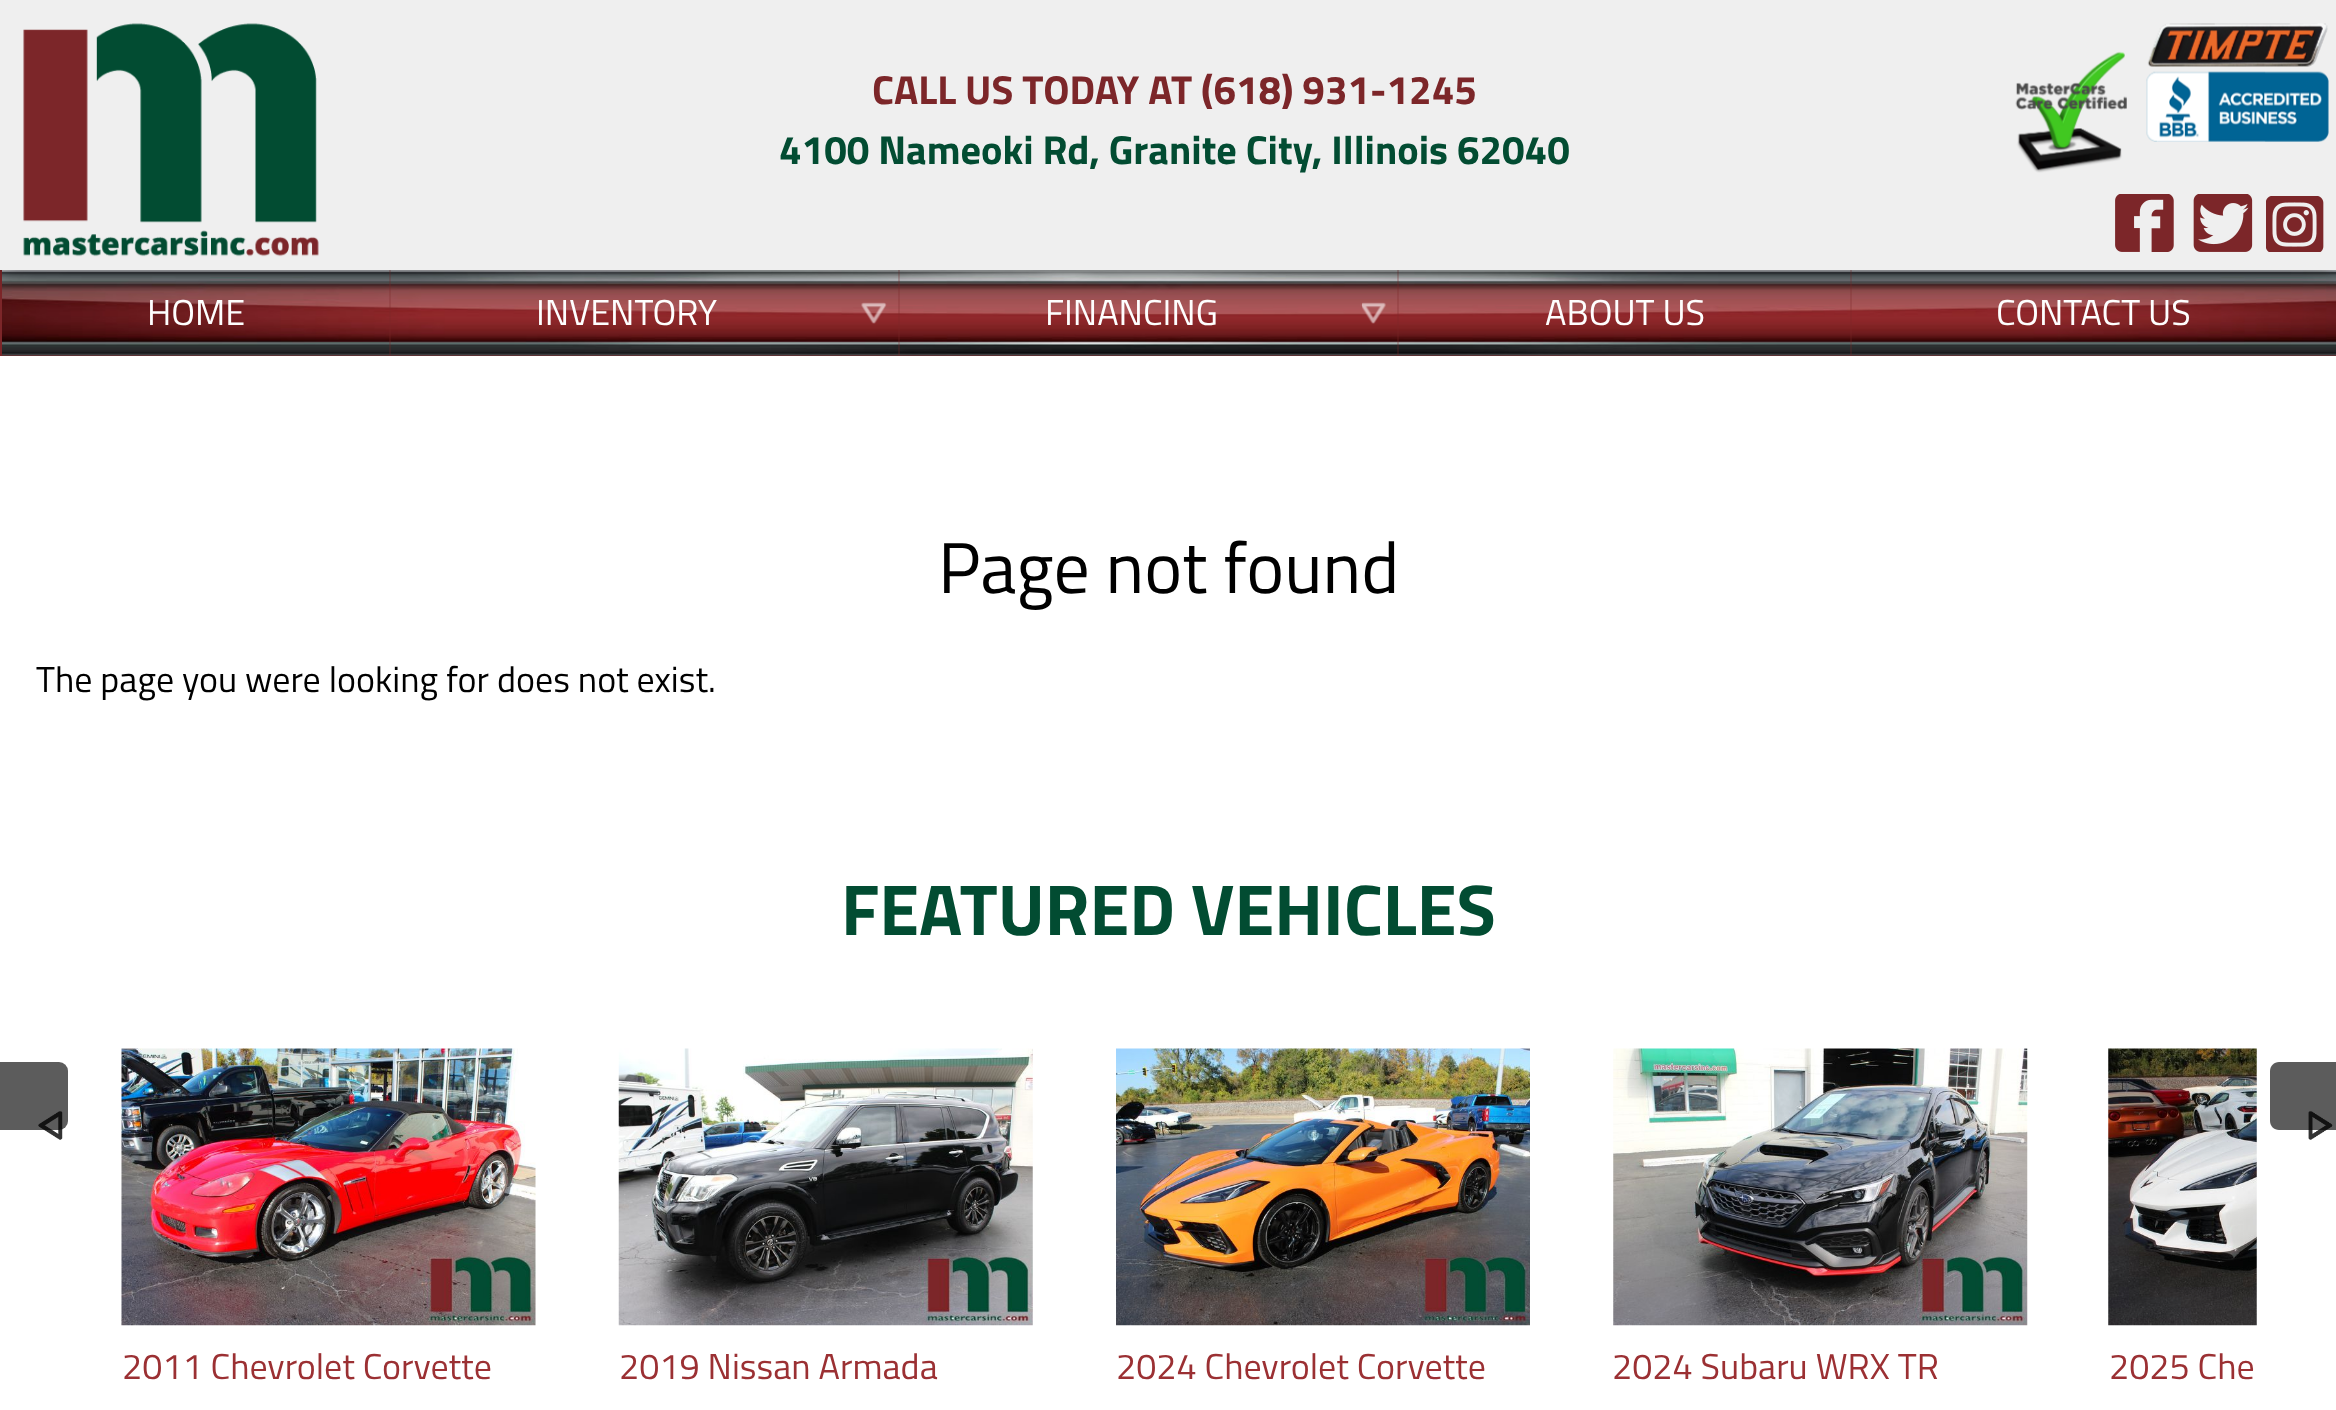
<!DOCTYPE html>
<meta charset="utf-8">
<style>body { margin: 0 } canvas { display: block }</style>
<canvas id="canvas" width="2336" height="1410"></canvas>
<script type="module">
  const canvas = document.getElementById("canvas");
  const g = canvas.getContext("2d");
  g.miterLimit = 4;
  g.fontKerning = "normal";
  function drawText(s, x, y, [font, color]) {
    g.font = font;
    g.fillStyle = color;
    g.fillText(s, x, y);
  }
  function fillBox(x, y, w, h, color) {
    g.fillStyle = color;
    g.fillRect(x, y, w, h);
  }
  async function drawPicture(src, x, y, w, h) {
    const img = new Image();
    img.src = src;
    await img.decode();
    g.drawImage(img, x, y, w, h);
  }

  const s1 = ["bold 40.3px Titillium Web", "#7C2629"];
  const s2 = ["bold 40.3px Titillium Web", "#024C32"];
  const s3 = ["36px Titillium Web", "#FEFEFE"];
  const s4 = ["72px Titillium Web", "#000000"];
  const s5 = ["36px Titillium Web", "#000000"];
  const s6 = ["bold 72px Titillium Web", "#024C32"];
  const s7 = ["36px Titillium Web", "#9B3033"];

  fillBox(0, 0, 2336, 1410, "#FFFFFF");
  fillBox(2, 355, 2334, 1, "#7C2629");
  await drawPicture("pic8.png", 2, 270, 2334, 86);
  fillBox(389, 270, 2, 86, "rgba(124, 38, 41, 0.25)");
  fillBox(0, 270, 2, 86, "#7C2629");
  fillBox(898, 270, 2, 86, "rgba(124, 38, 41, 0.25)");
  await drawPicture("pic9.png", 861, 302, 26, 22);
  fillBox(1397, 270, 2, 86, "rgba(124, 38, 41, 0.25)");
  await drawPicture("pic10.png", 1360, 302, 26, 22);
  fillBox(1850, 270, 2, 86, "rgba(124, 38, 41, 0.25)");
  g.fillStyle = "rgba(0, 0, 0, 0.5)";
  g.filter = "blur(11px)";
  g.beginPath();
  g.rect(0, 0, 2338, 270);
  g.fill();
  g.filter = "none";
  fillBox(0, 0, 2336, 270, "#EFEFEF");
  await drawPicture("pic1.png", 23, 23, 296, 234);
  drawText("CALL US TODAY AT (618) 931-1245", 872, 104, s1);
  drawText("4100 Nameoki Rd, Granite City, Illinois 62040", 779, 164, s2);
  await drawPicture("pic2.png", 2015, 51, 112, 122);
  await drawPicture("pic3.png", 2147, 23, 181, 44);
  await drawPicture("pic4.png", 2146, 71, 183, 71);
  await drawPicture("pic5.png", 2115, 194, 59, 58);
  await drawPicture("pic6.png", 2193, 194, 60, 58);
  await drawPicture("pic7.png", 2266, 196, 58, 56);
  drawText("HOME", 147, 325, s3);
  drawText("INVENTORY", 536, 325, s3);
  drawText("FINANCING", 1045, 325, s3);
  drawText("ABOUT US", 1545, 325, s3);
  drawText("CONTACT US", 1996, 325, s3);
  drawText("Page not found", 938, 593, s4);
  drawText("The page you were looking for does not exist.", 36, 692, s5);
  drawText("FEATURED VEHICLES", 841, 935, s6);
  g.fillStyle = "#5C5C5C";
  g.beginPath();
  g.roundRect(0, 1062, 68, 68, [0, 9, 9, 0]);
  g.fill();
  await drawPicture("pic11.png", 38, 1111, 25, 29);
  g.beginPath();
  g.moveTo(2279, 1062);
  g.lineTo(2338, 1062);
  g.lineTo(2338, 1130);
  g.lineTo(2279, 1130);
  g.bezierCurveTo(2274, 1130, 2270, 1126, 2270, 1121);
  g.lineTo(2270, 1071);
  g.bezierCurveTo(2270, 1066, 2274, 1062, 2279, 1062);
  g.closePath();
  g.fill();
  await drawPicture("pic12.png", 2308, 1111, 25, 29);
  await drawPicture("pic13.png", 121, 1048, 415, 278);
  drawText("2011 Chevrolet Corvette", 122, 1379, s7);
  await drawPicture("pic14.png", 618, 1048, 415, 278);
  drawText("2019 Nissan Armada", 619, 1379, s7);
  await drawPicture("pic15.png", 1116, 1048, 414, 278);
  drawText("2024 Chevrolet Corvette", 1116, 1379, s7);
  await drawPicture("pic16.png", 1613, 1048, 415, 278);
  drawText("2024 Subaru WRX TR", 1612, 1379, s7);
  await drawPicture("pic17.png", 2108, 1048, 149, 278);
  drawText("2025 Che", 2109, 1379, s7);
</script>
